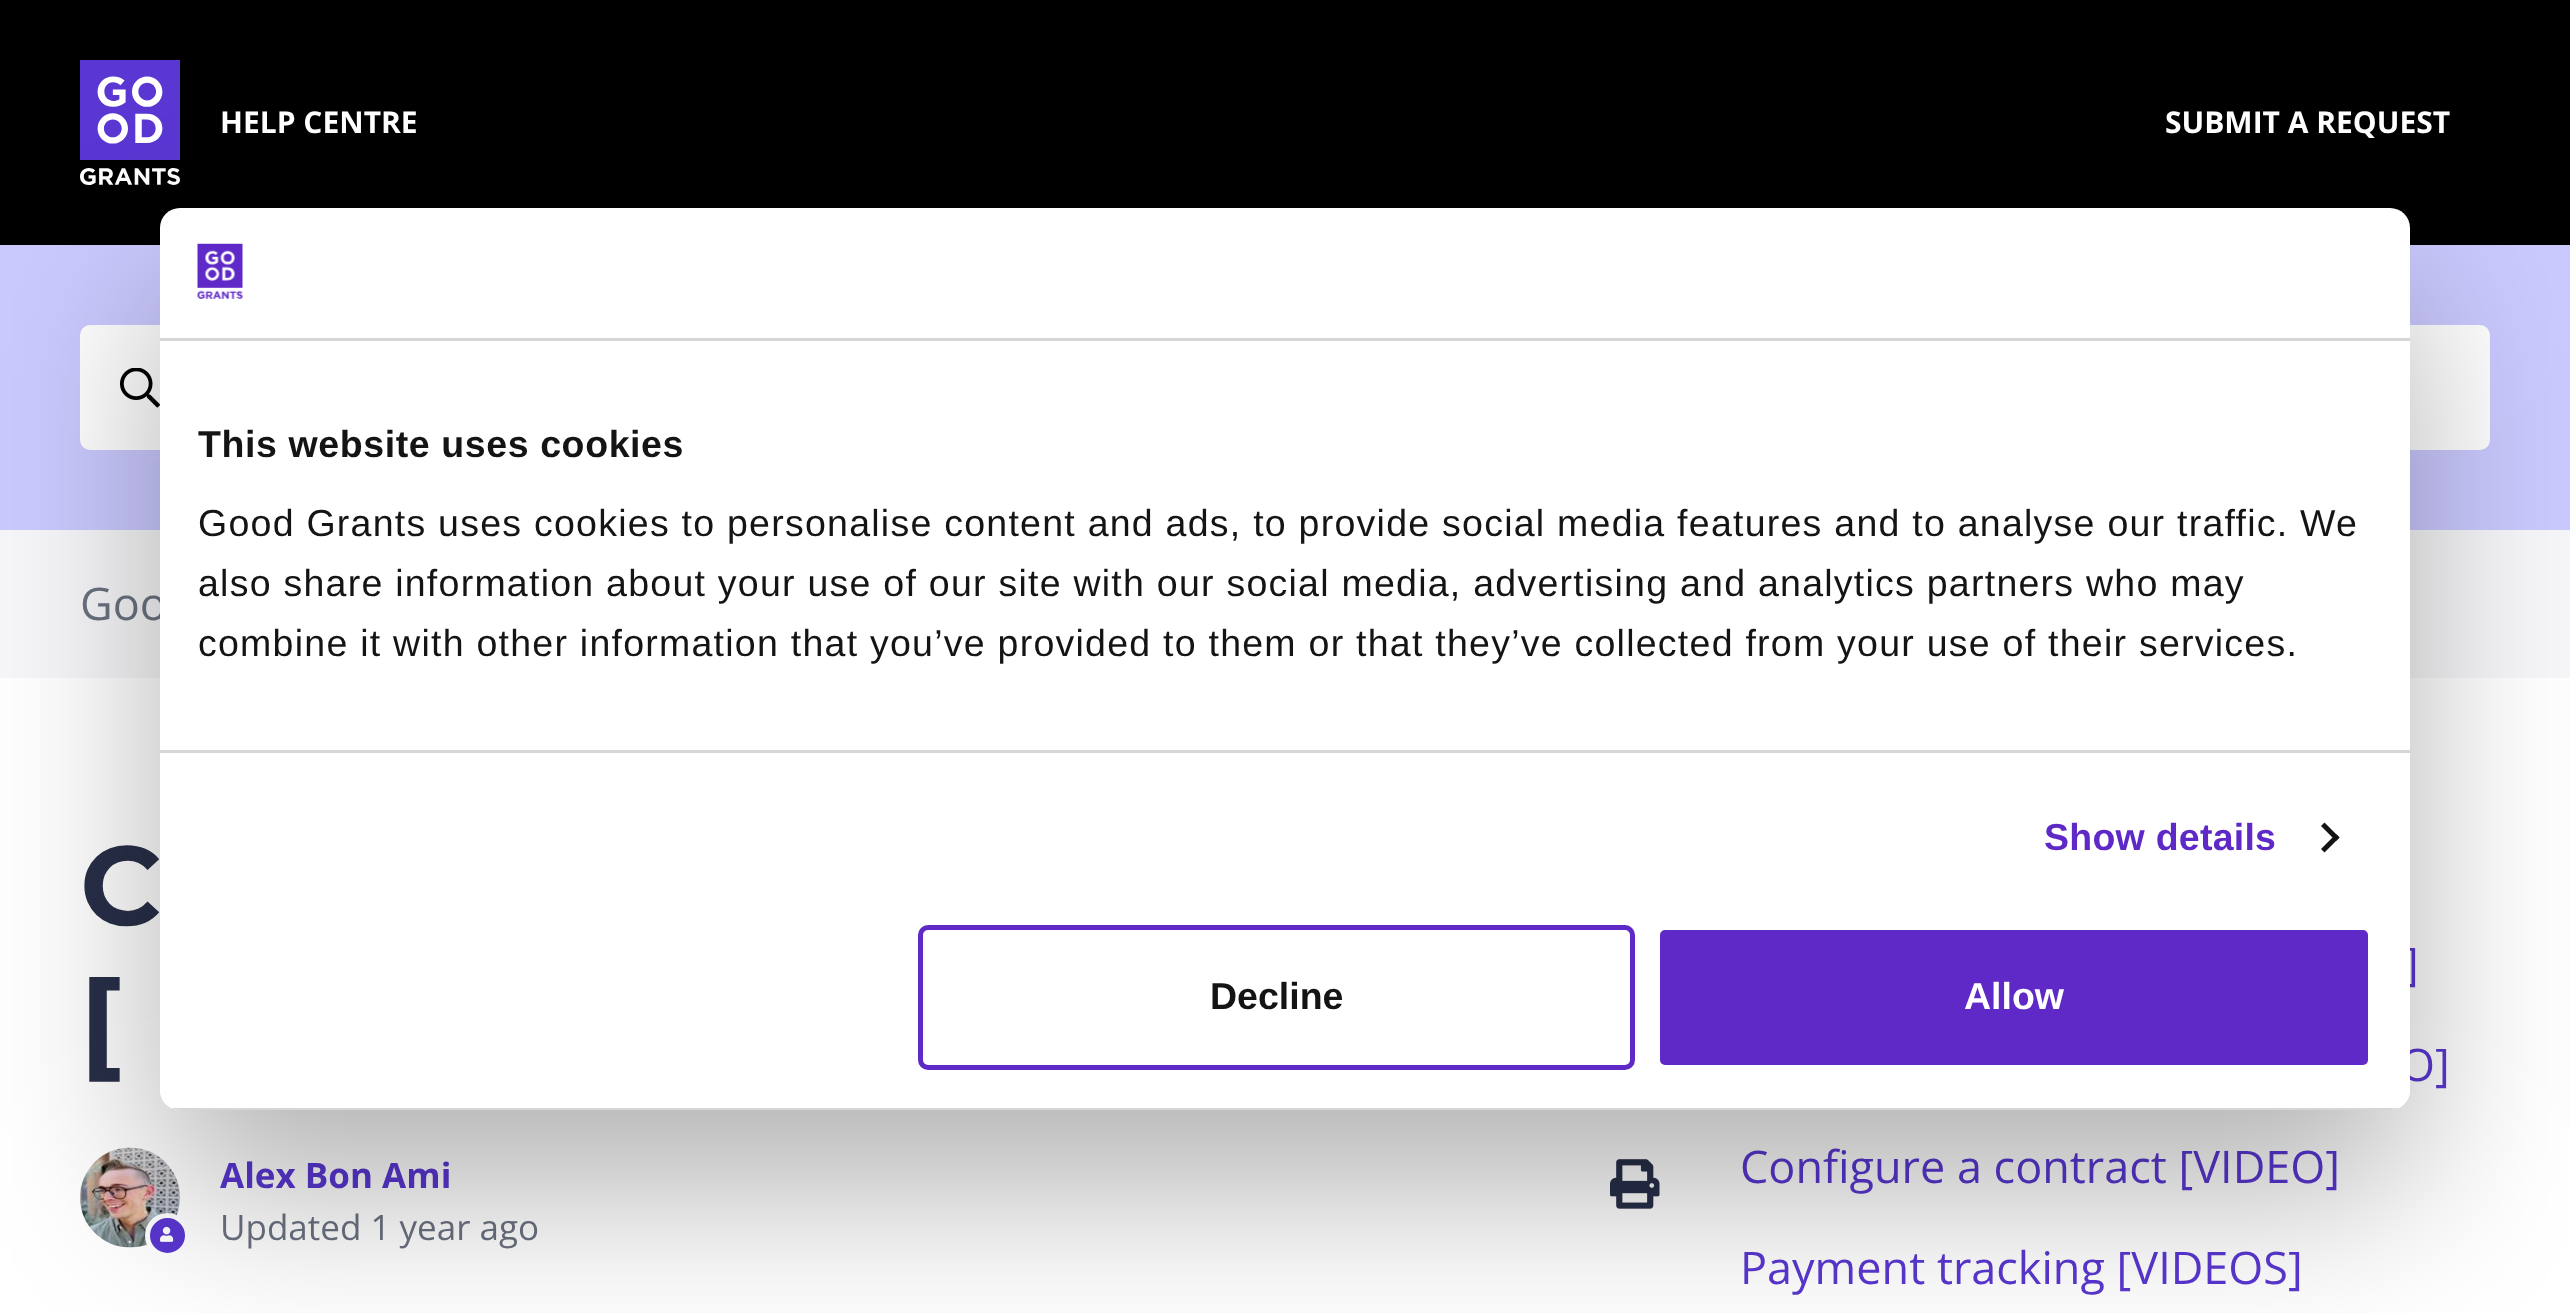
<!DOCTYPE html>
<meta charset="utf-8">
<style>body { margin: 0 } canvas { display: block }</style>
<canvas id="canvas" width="2570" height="1313"></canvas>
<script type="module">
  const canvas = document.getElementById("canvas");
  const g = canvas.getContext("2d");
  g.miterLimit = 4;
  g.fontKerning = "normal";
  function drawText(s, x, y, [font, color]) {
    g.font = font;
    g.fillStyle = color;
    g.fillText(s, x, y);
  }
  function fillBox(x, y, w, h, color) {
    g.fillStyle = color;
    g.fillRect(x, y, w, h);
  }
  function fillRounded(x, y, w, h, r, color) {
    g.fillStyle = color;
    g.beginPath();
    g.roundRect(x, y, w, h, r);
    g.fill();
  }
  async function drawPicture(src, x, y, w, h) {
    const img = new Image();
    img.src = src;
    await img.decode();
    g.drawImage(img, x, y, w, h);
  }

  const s1 = ["bold 30px Open Sans", "#FFFFFF"];
  const s2 = ["45px Open Sans", "#6B7280"];
  const s3 = ["bold 112px Montserrat", "#282F48"];
  const s4 = ["bold 35px Open Sans", "#5A37D2"];
  const s5 = ["35px Open Sans", "#6B7280"];
  const s6 = ["45px Open Sans", "#5A37D2"];
  const s7 = ["bold 37.5px Liberation Sans", "#141414"];
  const s8 = ["37.5px Liberation Sans", "#141414"];
  const s9 = ["bold 37.5px Liberation Sans", "#5E29C7"];
  const s10 = ["bold 37.5px Liberation Sans", "#FFFFFF"];

  fillBox(0, 0, 2570, 1313, "#FFFFFF");
  fillBox(0, 0, 2570, 245, "#000000");
  await drawPicture("pic1.png", 80, 60, 100, 125);
  drawText("HELP CENTRE", 220, 133, s1);
  drawText("SUBMIT A REQUEST", 2165, 133, s1);
  fillBox(0, 245, 2570, 285, "#CBCAFF");
  g.fillStyle = "#FFFFFF";
  g.beginPath();
  g.roundRect(82.5, 327.5, 2405, 120, 7.5);
  g.fill();
  g.strokeStyle = "#FFFFFF";
  g.lineWidth = 5;
  g.stroke();
  await drawPicture("pic2.png", 120, 368, 40, 40);
  fillBox(0, 530, 2570, 148, "#F7F7F9");
  drawText("Goo", 80, 620, s2);
  drawText("C", 80, 925, s3);
  drawText("[", 80, 1060, s3);
  await drawPicture("pic3.png", 80, 1147, 100, 101);
  g.fillStyle = "#5A37D2";
  g.beginPath();
  g.arc(167.5, 1235.5, 20, 0, Math.PI * 2);
  g.fill();
  g.stroke();
  await drawPicture("pic4.png", 160, 1226, 14, 16);
  drawText("Alex Bon Ami", 220, 1188, s4);
  drawText("Updated 1 year ago", 220, 1240, s5);
  await drawPicture("pic5.png", 1610, 1159, 50, 50);
  drawText("]", 2404, 980, s6);
  drawText("O]", 2400, 1081, s6);
  drawText("Configure a contract [VIDEO]", 1740, 1183, s6);
  drawText("Payment tracking [VIDEOS]", 1740, 1284, s6);
  g.save();
  g.beginPath();
  g.moveTo(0, 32);
  g.lineTo(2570, 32);
  g.lineTo(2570, 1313);
  g.lineTo(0, 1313);
  g.closePath();
  g.moveTo(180, 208);
  g.lineTo(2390, 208);
  g.bezierCurveTo(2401, 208, 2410, 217, 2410, 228);
  g.lineTo(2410, 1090);
  g.bezierCurveTo(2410, 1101, 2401, 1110, 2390, 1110);
  g.lineTo(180, 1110);
  g.bezierCurveTo(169, 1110, 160, 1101, 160, 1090);
  g.lineTo(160, 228);
  g.bezierCurveTo(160, 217, 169, 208, 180, 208);
  g.closePath();
  g.clip("evenodd");
  g.fillStyle = "rgba(0, 0, 0, 0.3)";
  g.filter = "blur(85px)";
  g.beginPath();
  g.roundRect(160, 288, 2250, 902, 20);
  g.fill();
  g.filter = "none";
  g.restore();
  fillRounded(160, 208, 2250, 902, 20, "#FFFFFF");
  fillBox(160, 338, 2250, 3, "#D6D6D6");
  await drawPicture("pic6.png", 197, 243, 46, 56);
  fillBox(160, 750, 2250, 3, "#D6D6D6");
  g.letterSpacing = "0.6px";
  drawText("This website uses cookies", 198, 457, s7);
  g.letterSpacing = "1.25px";
  drawText("Good Grants uses cookies to personalise content and ads, to provide social media features and to analyse our traffic. We", 198, 536, s8);
  drawText("also share information about your use of our site with our social media, advertising and analytics partners who may", 198, 596, s8);
  drawText("combine it with other information that you’ve provided to them or that they’ve collected from your use of their services.", 198, 656, s8);
  g.letterSpacing = "0.25px";
  drawText("Show details", 2044, 850, s9);
  g.fillStyle = "#141414";
  g.beginPath();
  g.moveTo(2324.5, 822.5);
  g.lineTo(2339.5, 837.5);
  g.lineTo(2336, 841);
  g.lineTo(2321, 826);
  g.closePath();
  g.fill();
  g.beginPath();
  g.moveTo(2336, 834);
  g.lineTo(2339.5, 837.5);
  g.lineTo(2324.5, 852.5);
  g.lineTo(2321, 849);
  g.closePath();
  g.fill();
  g.save();
  g.beginPath();
  g.roundRect(160, 208, 2250, 902, 20);
  g.clip();
  fillBox(171, 1108, 2228, 2, "#D6D6D6");
  g.restore();
  g.beginPath();
  g.roundRect(920.5, 927.5, 712, 140, 7.5);
  g.strokeStyle = "#5E29C7";
  g.stroke();
  g.letterSpacing = "0px";
  drawText("Decline", 1210, 1009, s7);
  g.fillStyle = "#5E29C7";
  g.beginPath();
  g.roundRect(1657.5, 927.5, 713, 140, 7.5);
  g.fill();
  g.strokeStyle = "#FFFFFF";
  g.stroke();
  drawText("Allow", 1964, 1009, s10);
</script>
